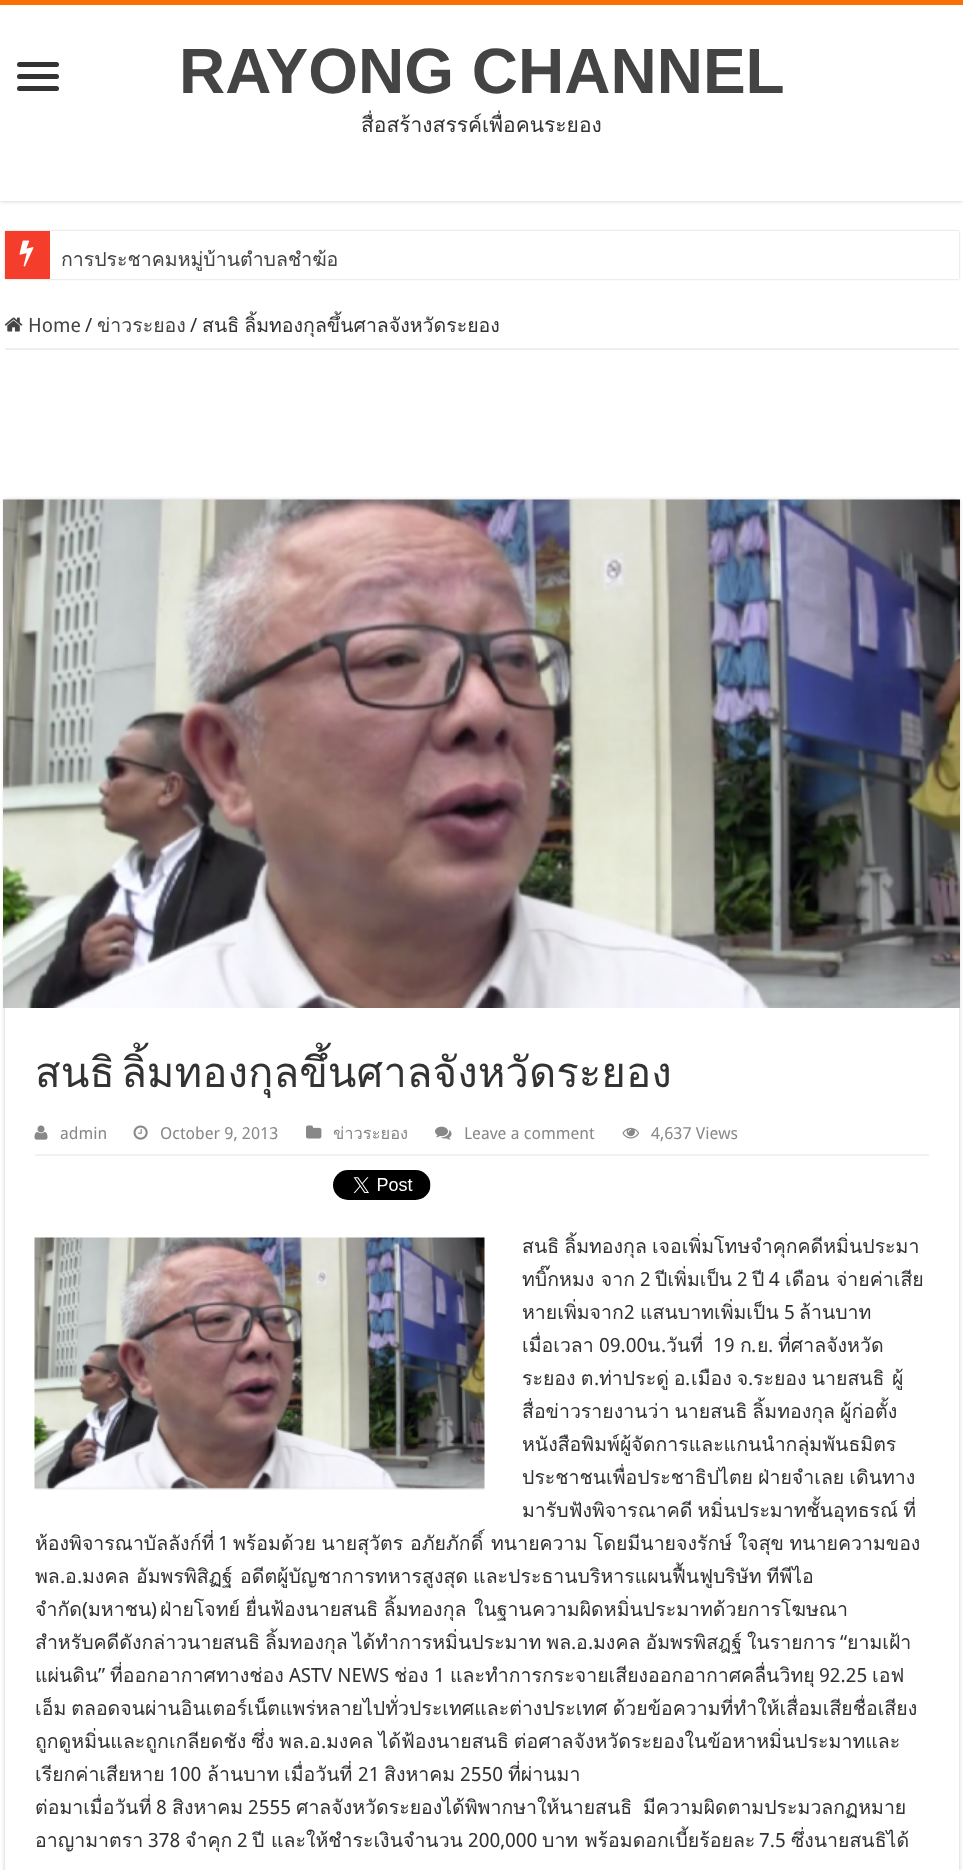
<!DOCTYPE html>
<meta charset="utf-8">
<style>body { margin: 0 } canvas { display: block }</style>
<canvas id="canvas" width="963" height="1870"></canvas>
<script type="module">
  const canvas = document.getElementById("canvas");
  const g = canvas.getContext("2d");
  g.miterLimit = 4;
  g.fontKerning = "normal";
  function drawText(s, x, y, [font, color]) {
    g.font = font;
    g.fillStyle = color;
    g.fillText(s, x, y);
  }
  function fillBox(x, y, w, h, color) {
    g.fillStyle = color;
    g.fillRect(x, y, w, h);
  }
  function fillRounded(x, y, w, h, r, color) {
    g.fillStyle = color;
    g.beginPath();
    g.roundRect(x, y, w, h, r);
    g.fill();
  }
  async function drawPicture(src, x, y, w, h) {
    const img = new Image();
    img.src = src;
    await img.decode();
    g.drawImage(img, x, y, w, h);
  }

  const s1 = ["bold 64px Liberation Sans", "#444444"];
  const s2 = ["21px Loma", "#333333"];
  const s3 = ["19.5px Loma", "#444444"];
  const s4 = ["19.5px Droid Sans", "#444444"];
  const s5 = ["19.5px Droid Sans", "#333333"];
  const s6 = ["19.5px Loma", "#333333"];
  const s7 = ["42px Loma", "#333333"];
  const s8 = ["16.5px Droid Sans", "#888888"];
  const s9 = ["16.5px Loma", "#888888"];

  fillBox(0, 0, 963, 1870, "#FFFFFF");
  g.save();
  g.beginPath();
  g.rect(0, 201, 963, 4);
  g.clip();
  g.fillStyle = "#CACACA";
  g.filter = "blur(2px)";
  g.beginPath();
  g.rect(0, 0, 963, 201);
  g.fill();
  g.filter = "none";
  g.restore();
  fillBox(0, 0, 963, 5, "#FA6F05");
  fillRounded(17, 62, 42, 5, 2.5, "#333333");
  fillRounded(17, 74, 42, 5, 2.5, "#333333");
  fillRounded(17, 86, 42, 5, 2.5, "#333333");
  drawText("RAYONG CHANNEL", 179, 93, s1);
  drawText("สื่อสร้างสรรค์เพื่อคนระยอง", 361, 132, s2);
  g.fillStyle = "#CACACA";
  g.filter = "blur(1px)";
  g.beginPath();
  g.rect(5, 231, 954, 48);
  g.fill();
  g.filter = "none";
  fillBox(50, 231, 909, 48, "#FFFFFF");
  fillBox(5, 231, 45, 48, "#F43D2A");
  await drawPicture("pic1.png", 19, 240, 15, 27);
  drawText("การประชาคมหมู่บ้านตำบลชำฆ้อ", 61, 266, s3);
  fillBox(5, 348, 954, 2, "#EEEEEE");
  await drawPicture("pic2.png", 4, 317, 19, 15);
  drawText("Home", 28, 332, s4);
  drawText("/", 85, 332, s5);
  drawText("ข่าวระยอง", 97, 332, s3);
  drawText("/", 190, 332, s5);
  g.wordSpacing = "-1.5px";
  drawText("สนธิ ลิ้มทองกุลขึ้นศาลจังหวัดระยอง", 202, 332, s6);
  g.fillStyle = "#CACACA";
  g.filter = "blur(2px)";
  g.beginPath();
  g.rect(5, 500, 954, 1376);
  g.fill();
  g.filter = "none";
  fillBox(5, 1008, 954, 862, "#FFFFFF");
  await drawPicture("pic3.png", 3, 499, 957, 509);
  g.wordSpacing = "-8px";
  drawText("สนธิ ลิ้มทองกุลขึ้นศาลจังหวัดระยอง", 35, 1087, s7);
  fillBox(35, 1154, 894, 2, "#F2F2F2");
  await drawPicture("pic4.png", 34, 1125, 14, 15);
  g.wordSpacing = "0px";
  drawText("admin", 60, 1139, s8);
  await drawPicture("pic5.png", 133, 1125, 15, 15);
  drawText("October 9, 2013", 160, 1139, s8);
  await drawPicture("pic6.png", 306, 1125, 16, 14);
  drawText("ข่าวระยอง", 333, 1139, s9);
  await drawPicture("pic7.png", 435, 1126, 17, 14);
  drawText("Leave a comment", 464, 1139, s8);
  await drawPicture("pic8.png", 622, 1127, 17, 12);
  drawText("4,637 Views", 651, 1139, s8);
  await drawPicture("pic9.png", 333, 1170, 98, 30);
  await drawPicture("pic10.png", 34, 1237, 451, 253);
  g.wordSpacing = "-1.5px";
  drawText("สนธิ ลิ้มทองกุล เจอเพิ่มโทษจำคุกคดีหมิ่นประมา", 522, 1253, s6);
  g.wordSpacing = "0px";
  drawText("ทบิ๊กหมง จาก", 522, 1286, s6);
  drawText("2", 640, 1286, s5);
  drawText("ปีเพิ่มเป็น", 655, 1286, s6);
  drawText("2", 737, 1286, s5);
  drawText("ปี", 752, 1286, s6);
  drawText("4", 769, 1286, s5);
  drawText("เดือน จ่ายค่าเสีย", 785, 1286, s6);
  drawText("หายเพิ่มจาก", 522, 1319, s6);
  drawText("2", 624, 1319, s5);
  drawText("แสนบาทเพิ่มเป็น", 640, 1319, s6);
  drawText("5", 784, 1319, s5);
  drawText("ล้านบาท", 799, 1319, s6);
  drawText("เมื่อเวลา", 522, 1352, s6);
  drawText("09.00", 599, 1352, s5);
  drawText("น", 647, 1352, s6);
  drawText(".", 661, 1352, s5);
  drawText("วันที่", 666, 1352, s6);
  drawText("19", 713, 1352, s5);
  drawText("ก", 740, 1352, s6);
  drawText("ย", 757, 1352, s6);
  drawText(".", 768, 1352, s5);
  drawText("ที่ศาลจังหวัด", 778, 1352, s6);
  drawText(".", 751, 1352, s5);
  g.wordSpacing = "-1.5px";
  drawText("ระยอง ต", 522, 1385, s6);
  g.wordSpacing = "0px";
  drawText(".", 594, 1385, s5);
  g.wordSpacing = "-1.5px";
  drawText("ท่าประดู่ อ", 599, 1385, s6);
  g.wordSpacing = "0px";
  drawText(".", 685, 1385, s5);
  g.wordSpacing = "-1.5px";
  drawText("เมือง จ", 691, 1385, s6);
  drawText("ระยอง นายสนธิ", 753, 1385, s6);
  g.wordSpacing = "0px";
  drawText("ผู้", 892, 1385, s6);
  drawText(".", 748, 1385, s5);
  g.wordSpacing = "-1.5px";
  drawText("สื่อข่าวรายงานว่า นายสนธิ ลิ้มทองกุล ผู้ก่อตั้ง", 522, 1418, s6);
  g.wordSpacing = "0px";
  drawText("หนังสือพิมพ์ผู้จัดการและแกนนำกลุ่มพันธมิตร", 522, 1451, s6);
  g.wordSpacing = "-1.5px";
  drawText("ประชาชนเพื่อประชาธิปไตย ฝ่ายจำเลย เดินทาง", 522, 1484, s6);
  drawText("มารับฟังพิจารณาคดี หมิ่นประมาทชั้นอุทธรณ์ ที่", 522, 1517, s6);
  g.wordSpacing = "0px";
  drawText("ห้องพิจารณาบัลลังก์ที่", 35, 1550, s6);
  drawText("1", 218, 1550, s5);
  g.wordSpacing = "-1px";
  drawText("พร้อมด้วย นายสุวัตร", 233, 1550, s6);
  g.wordSpacing = "0px";
  drawText("อภัยภักดิ์", 410, 1550, s6);
  g.wordSpacing = "-1px";
  drawText("ทนายความ โดยมีนายจงรักษ์ ใจสุข ทนายความของ", 491, 1550, s6);
  g.wordSpacing = "0px";
  drawText("พล", 35, 1583, s6);
  drawText(".", 60, 1583, s5);
  drawText("อ", 65, 1583, s6);
  drawText(".", 77, 1583, s5);
  drawText("มงคล", 82, 1583, s6);
  drawText("อัมพรพิสิฏฐ์", 136, 1583, s6);
  g.wordSpacing = "-1.5px";
  drawText("อดีตผู้บัญชาการทหารสูงสุด และประธานบริหารแผนฟื้นฟูบริษัท ทีพีไอ", 240, 1583, s6);
  g.wordSpacing = "0px";
  drawText("จำกัด", 35, 1616, s6);
  drawText("(", 82, 1616, s5);
  drawText("มหาชน", 88, 1616, s6);
  drawText(")", 151, 1616, s5);
  g.wordSpacing = "-1px";
  drawText("ฝ่ายโจทย์ ยื่นฟ้องนายสนธิ ลิ้มทองกุล", 160, 1616, s6);
  g.wordSpacing = "0px";
  drawText("ในฐานความผิดหมิ่นประมาทด้วยการโฆษณา", 474, 1616, s6);
  g.wordSpacing = "-1.5px";
  drawText("สำหรับคดีดังกล่าวนายสนธิ ลิ้มทองกุล ได้ทำการหมิ่นประมาท พล", 35, 1649, s6);
  drawText("มงคล อัมพรพิสฎฐ์ ในรายการ", 593, 1649, s6);
  g.wordSpacing = "0px";
  drawText("“", 840, 1649, s5);
  drawText("ยามเฝ้า", 847, 1649, s6);
  drawText(".", 571, 1649, s5);
  drawText("อ", 576, 1649, s6);
  drawText(".", 588, 1649, s5);
  drawText("แผ่นดิน", 35, 1682, s6);
  drawText("”", 98, 1682, s5);
  drawText("ที่ออกอากาศทางช่อง", 110, 1682, s6);
  drawText("ASTV NEWS", 289, 1682, s5);
  drawText("ช่อง", 394, 1682, s6);
  drawText("และทำการกระจายเสียงออกอากาศคลื่นวิทยุ", 450, 1682, s6);
  drawText("92.25", 819, 1682, s5);
  drawText("เอฟ", 872, 1682, s6);
  drawText("1", 434, 1682, s5);
  g.wordSpacing = "-1.5px";
  drawText("เอ็ม ตลอดจนผ่านอินเตอร์เน็ตแพร่หลายไปทั่วประเทศและต่างประเทศ ด้วยข้อความที่ทำให้เสื่อมเสียชื่อเสียง", 35, 1715, s6);
  drawText("ถูกดูหมิ่นและถูกเกลียดชัง ซึ่ง พล", 35, 1748, s6);
  g.wordSpacing = "0px";
  drawText(".", 304, 1748, s5);
  drawText("อ", 309, 1748, s6);
  drawText(".", 321, 1748, s5);
  g.wordSpacing = "-1.5px";
  drawText("มงคล ได้ฟ้องนายสนธิ ต่อศาลจังหวัดระยองในข้อหาหมิ่นประมาทและ", 326, 1748, s6);
  g.wordSpacing = "0px";
  drawText("เรียกค่าเสียหาย", 35, 1781, s6);
  drawText("100", 169, 1781, s5);
  drawText("ล้านบาท", 207, 1781, s6);
  drawText("เมื่อวันที่", 284, 1781, s6);
  drawText("21", 358, 1781, s5);
  drawText("สิงหาคม", 384, 1781, s6);
  drawText("2550", 460, 1781, s5);
  drawText("ที่ผ่านมา", 508, 1781, s6);
  drawText("ต่อมาเมื่อวันที่", 35, 1814, s6);
  drawText("8", 156, 1814, s5);
  drawText("สิงหาคม", 172, 1814, s6);
  drawText("2555", 248, 1814, s5);
  drawText("ศาลจังหวัดระยองได้พิพากษาให้นายสนธิ", 296, 1814, s6);
  drawText("มีความผิดตามประมวลกฏหมาย", 643, 1814, s6);
  drawText("อาญามาตรา", 35, 1847, s6);
  drawText("378", 148, 1847, s5);
  drawText("จำคุก", 185, 1847, s6);
  drawText("2", 237, 1847, s5);
  drawText("ปี และให้ชำระเงินจำนวน", 252, 1847, s6);
  drawText("200,000", 468, 1847, s5);
  drawText("บาท พร้อมดอกเบี้ยร้อยละ", 542, 1847, s6);
  drawText("7.5", 759, 1847, s5);
  drawText("ซึ่งนายสนธิได้", 791, 1847, s6);
</script>
